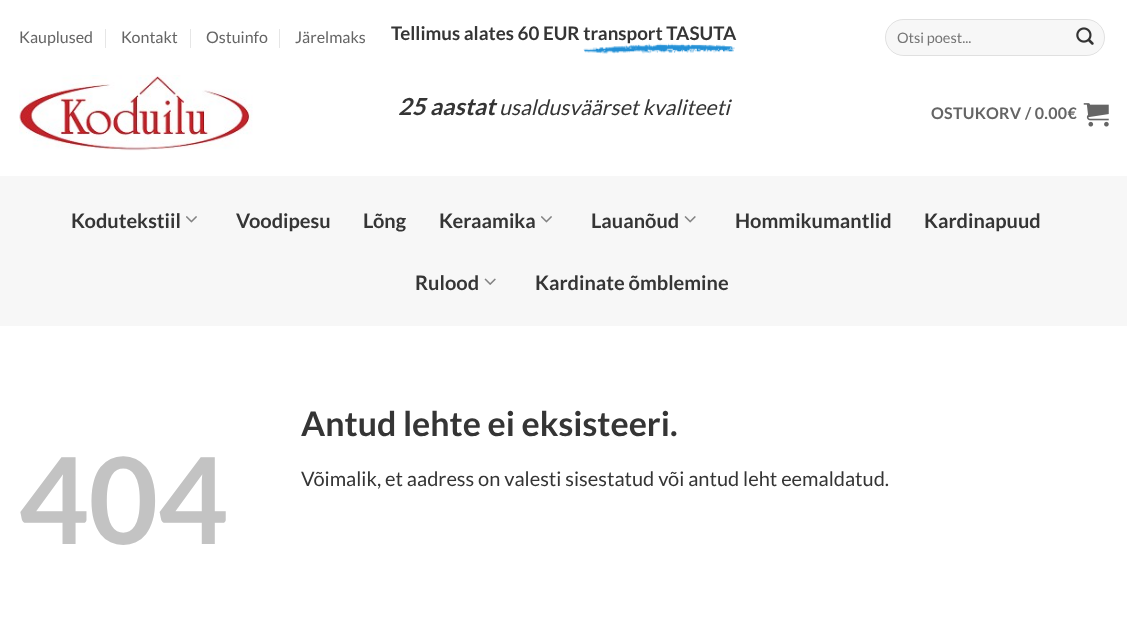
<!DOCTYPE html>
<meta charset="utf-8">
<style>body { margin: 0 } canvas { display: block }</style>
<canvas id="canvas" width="1127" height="624"></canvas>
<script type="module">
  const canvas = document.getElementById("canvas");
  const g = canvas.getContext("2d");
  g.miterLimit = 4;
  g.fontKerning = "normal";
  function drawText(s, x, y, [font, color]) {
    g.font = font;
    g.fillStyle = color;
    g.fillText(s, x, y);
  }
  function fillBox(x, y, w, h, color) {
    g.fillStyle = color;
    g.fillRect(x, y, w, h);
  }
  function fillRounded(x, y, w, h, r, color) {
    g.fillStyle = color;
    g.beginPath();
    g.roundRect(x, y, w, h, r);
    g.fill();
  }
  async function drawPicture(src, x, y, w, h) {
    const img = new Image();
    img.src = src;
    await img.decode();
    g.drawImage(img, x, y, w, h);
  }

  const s1 = ["16px Lato", "#656565"];
  const s2 = ["bold 18.75px Lato", "#353535"];
  const s3 = ["14.5px Lato", "#757575"];
  const s4 = ["italic bold 23.5px Lato", "#353535"];
  const s5 = ["italic 21.25px Lato", "#353535"];
  const s6 = ["bold 16px Lato", "#656565"];
  const s7 = ["bold 20px Lato", "#353535"];
  const s8 = ["bold 120px Lato", "#C3C3C3"];
  const s9 = ["bold 34px Lato", "#353535"];
  const s10 = ["20px Lato", "#353535"];

  fillBox(0, 0, 1127, 624, "#FFFFFF");
  drawText("Kauplused", 19, 43, s1);
  fillBox(105, 29, 1, 19, "#E6E6E6");
  drawText("Kontakt", 121, 43, s1);
  fillBox(190, 29, 1, 19, "#E6E6E6");
  drawText("Ostuinfo", 206, 43, s1);
  fillBox(279, 29, 1, 19, "#E6E6E6");
  drawText("Järelmaks", 295, 43, s1);
  drawText("Tellimus alates 60 EUR transport TASUTA", 391, 40, s2);
  await drawPicture("pic1.png", 583, 43, 152, 11);
  fillRounded(885, 19, 220, 37, 18.5, "#F7F7F7");
  g.beginPath();
  g.roundRect(885.5, 19.5, 219, 36, 18);
  g.strokeStyle = "rgba(0, 0, 0, 0.09)";
  g.stroke();
  drawText("Otsi poest...", 897, 43, s3);
  await drawPicture("pic2.png", 1076, 27, 18, 18);
  await drawPicture("pic3.png", 19, 75, 234, 76);
  drawText("25 aastat", 398, 115, s4);
  drawText("usaldusväärset kvaliteeti", 499, 115, s5);
  g.letterSpacing = "0.3px";
  drawText("OSTUKORV / 0.00€", 931, 119, s6);
  await drawPicture("pic4.png", 1083, 103, 26, 24);
  fillBox(0, 176, 1127, 150, "#F7F7F7");
  g.letterSpacing = "0px";
  drawText("Kodutekstiil", 71, 228, s7);
  await drawPicture("pic5.png", 186, 216, 11, 7);
  drawText("Voodipesu", 236, 228, s7);
  drawText("Lõng", 363, 228, s7);
  drawText("Keraamika", 439, 228, s7);
  await drawPicture("pic5.png", 541, 216, 11, 7);
  drawText("Lauanõud", 591, 228, s7);
  await drawPicture("pic6.png", 684, 216, 12, 7);
  drawText("Hommikumantlid", 735, 228, s7);
  drawText("Kardinapuud", 924, 228, s7);
  drawText("Rulood", 415, 290, s7);
  await drawPicture("pic7.png", 484, 278, 12, 7);
  drawText("Kardinate õmblemine", 535, 290, s7);
  drawText("404", 19, 544, s8);
  drawText("Antud lehte ei eksisteeri.", 301, 436, s9);
  drawText("Võimalik, et aadress on valesti sisestatud või antud leht eemaldatud.", 301, 486, s10);
</script>
